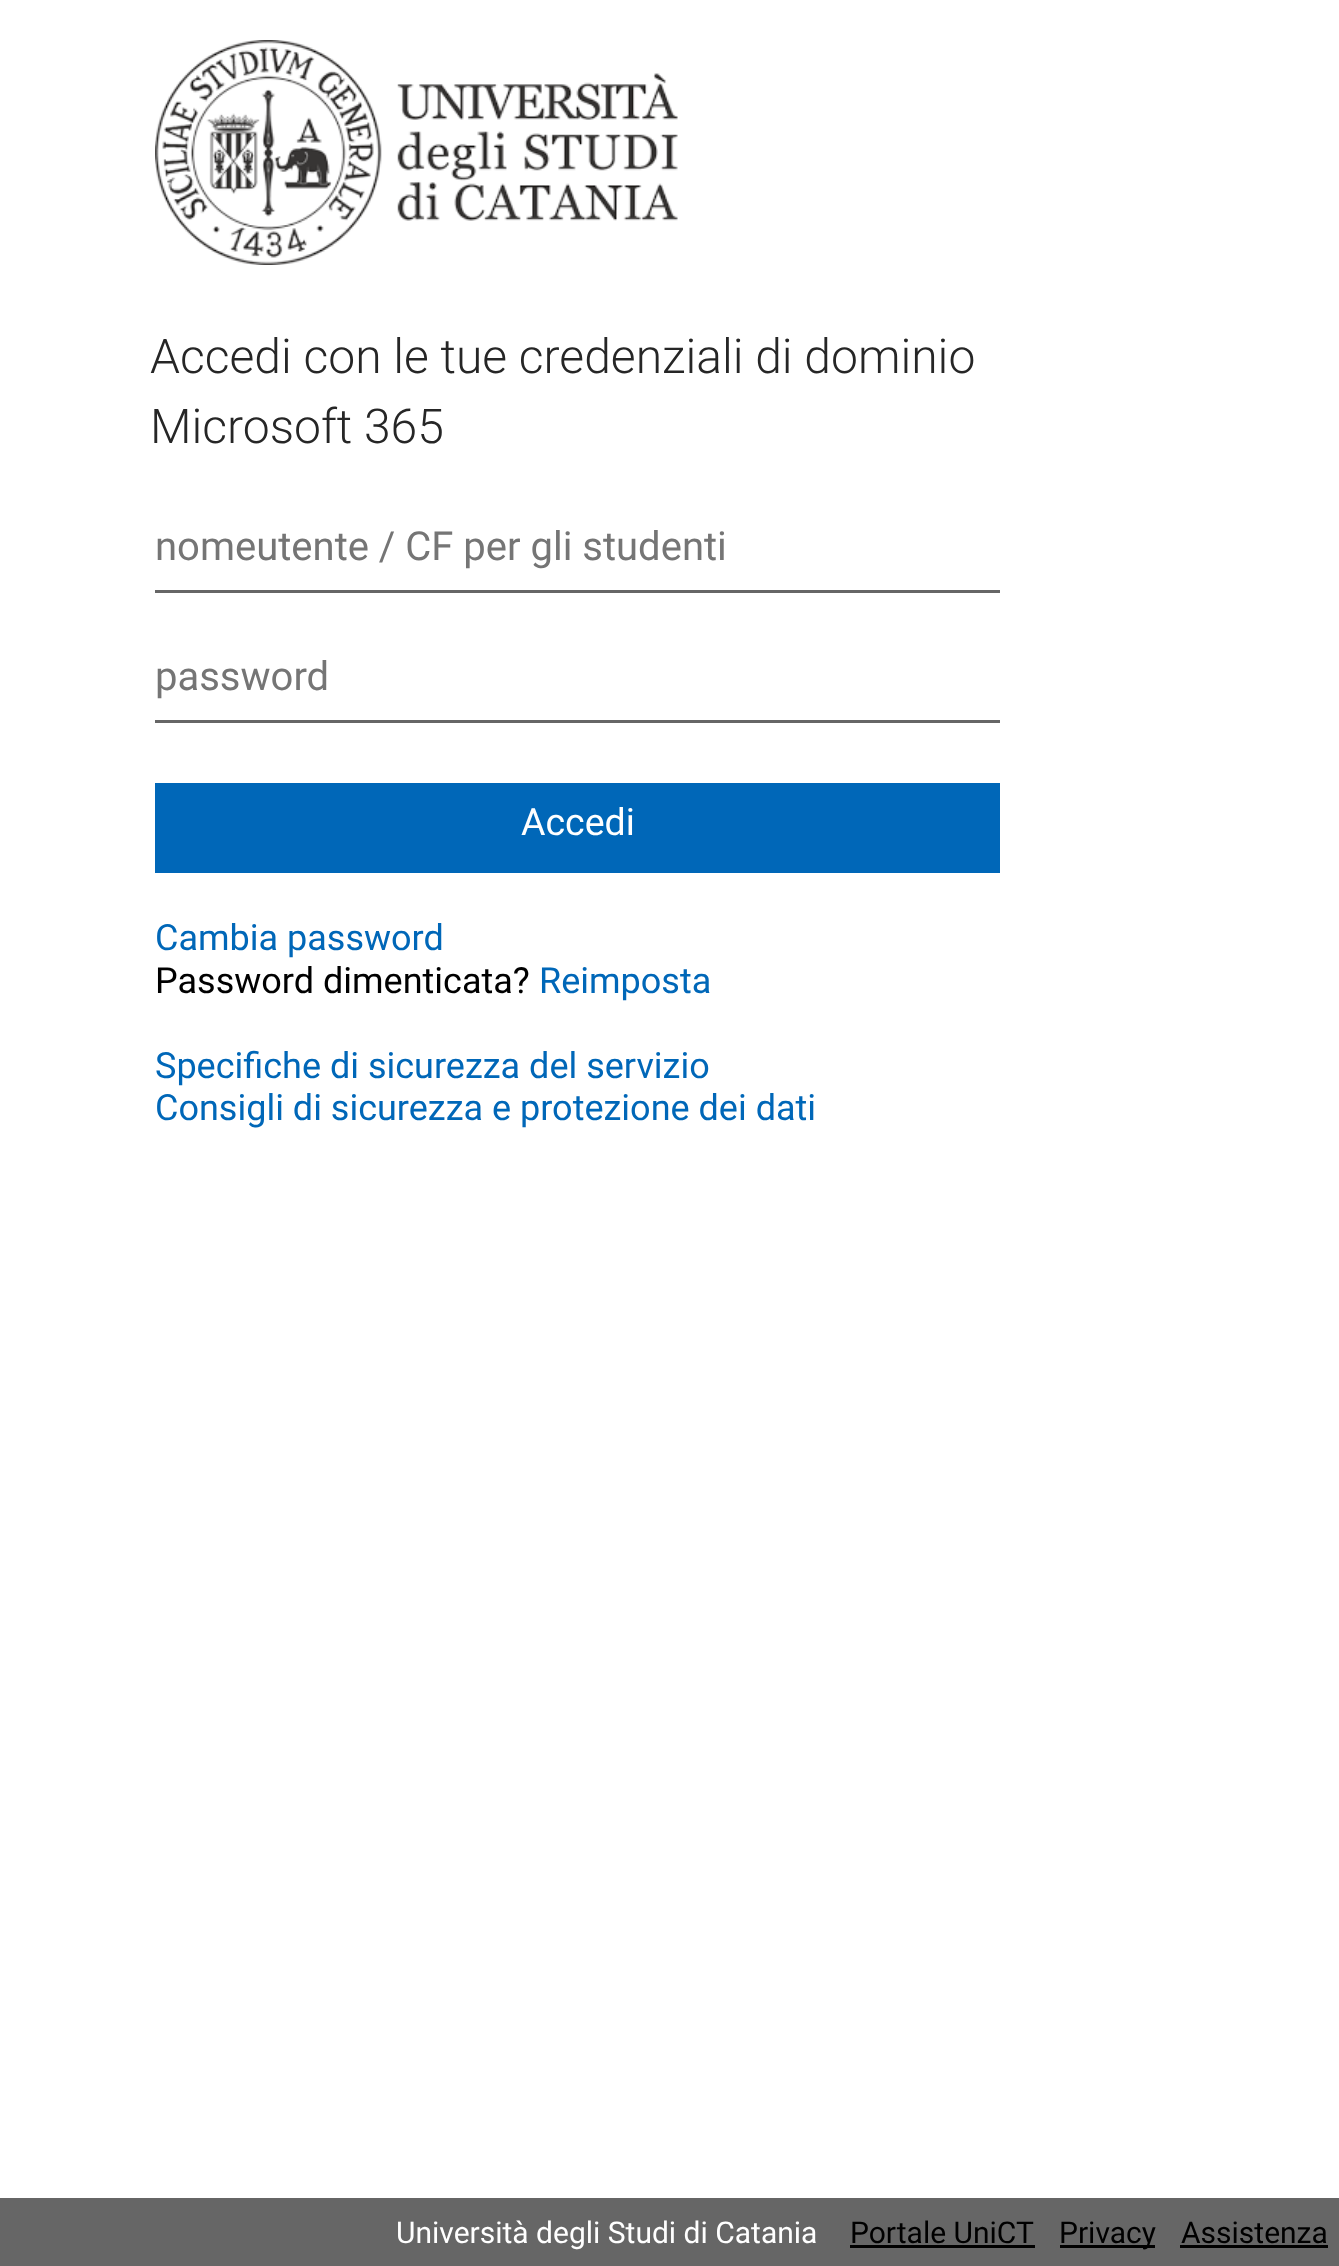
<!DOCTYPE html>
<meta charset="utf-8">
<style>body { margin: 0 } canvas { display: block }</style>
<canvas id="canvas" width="1339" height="2266"></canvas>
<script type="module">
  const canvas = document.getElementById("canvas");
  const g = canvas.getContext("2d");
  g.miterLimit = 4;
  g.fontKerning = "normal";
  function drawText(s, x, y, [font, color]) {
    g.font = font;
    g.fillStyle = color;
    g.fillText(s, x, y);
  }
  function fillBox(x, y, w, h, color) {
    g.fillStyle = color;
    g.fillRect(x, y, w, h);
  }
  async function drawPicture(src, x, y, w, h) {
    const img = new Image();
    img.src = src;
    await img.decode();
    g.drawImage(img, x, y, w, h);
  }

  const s1 = ["300 48px Roboto", "#262626"];
  const s2 = ["40px Roboto", "#757575"];
  const s3 = ["37.5px Roboto", "#FFFFFF"];
  const s4 = ["36px Roboto", "#0067B8"];
  const s5 = ["36px Roboto", "#000000"];
  const s6 = ["30px Roboto", "#FFFFFF"];
  const s7 = ["30px Roboto", "#000000"];

  fillBox(0, 0, 1339, 2266, "#FFFFFF");
  await drawPicture("pic1.png", 155, 40, 523, 225);
  drawText("Accedi con le tue credenziali di dominio", 150, 373, s1);
  drawText("Microsoft 365", 150, 443, s1);
  fillBox(155, 590, 845, 3, "#666666");
  drawText("nomeutente / CF per gli studenti", 155, 560, s2);
  fillBox(155, 720, 845, 3, "#666666");
  drawText("password", 155, 690, s2);
  fillBox(155, 783, 845, 90, "#0067B8");
  drawText("Accedi", 521, 835, s3);
  drawText("Cambia password", 155, 950, s4);
  drawText("Password dimenticata?", 155, 993, s5);
  drawText("Reimposta", 539, 993, s4);
  drawText("Specifiche di sicurezza del servizio", 155, 1078, s4);
  drawText("Consigli di sicurezza e protezione dei dati", 155, 1120, s4);
  fillBox(0, 2198, 1339, 68, "#666666");
  drawText("Università degli Studi di Catania", 396, 2243, s6);
  drawText("Portale UniCT", 850, 2243, s7);
  fillBox(850, 2245, 185, 3, "#000000");
  fillBox(1060, 2245, 95, 3, "#000000");
  drawText("Privacy", 1059, 2243, s7);
  drawText("Assistenza", 1181, 2243, s7);
  fillBox(1180, 2245, 148, 3, "#000000");
</script>
